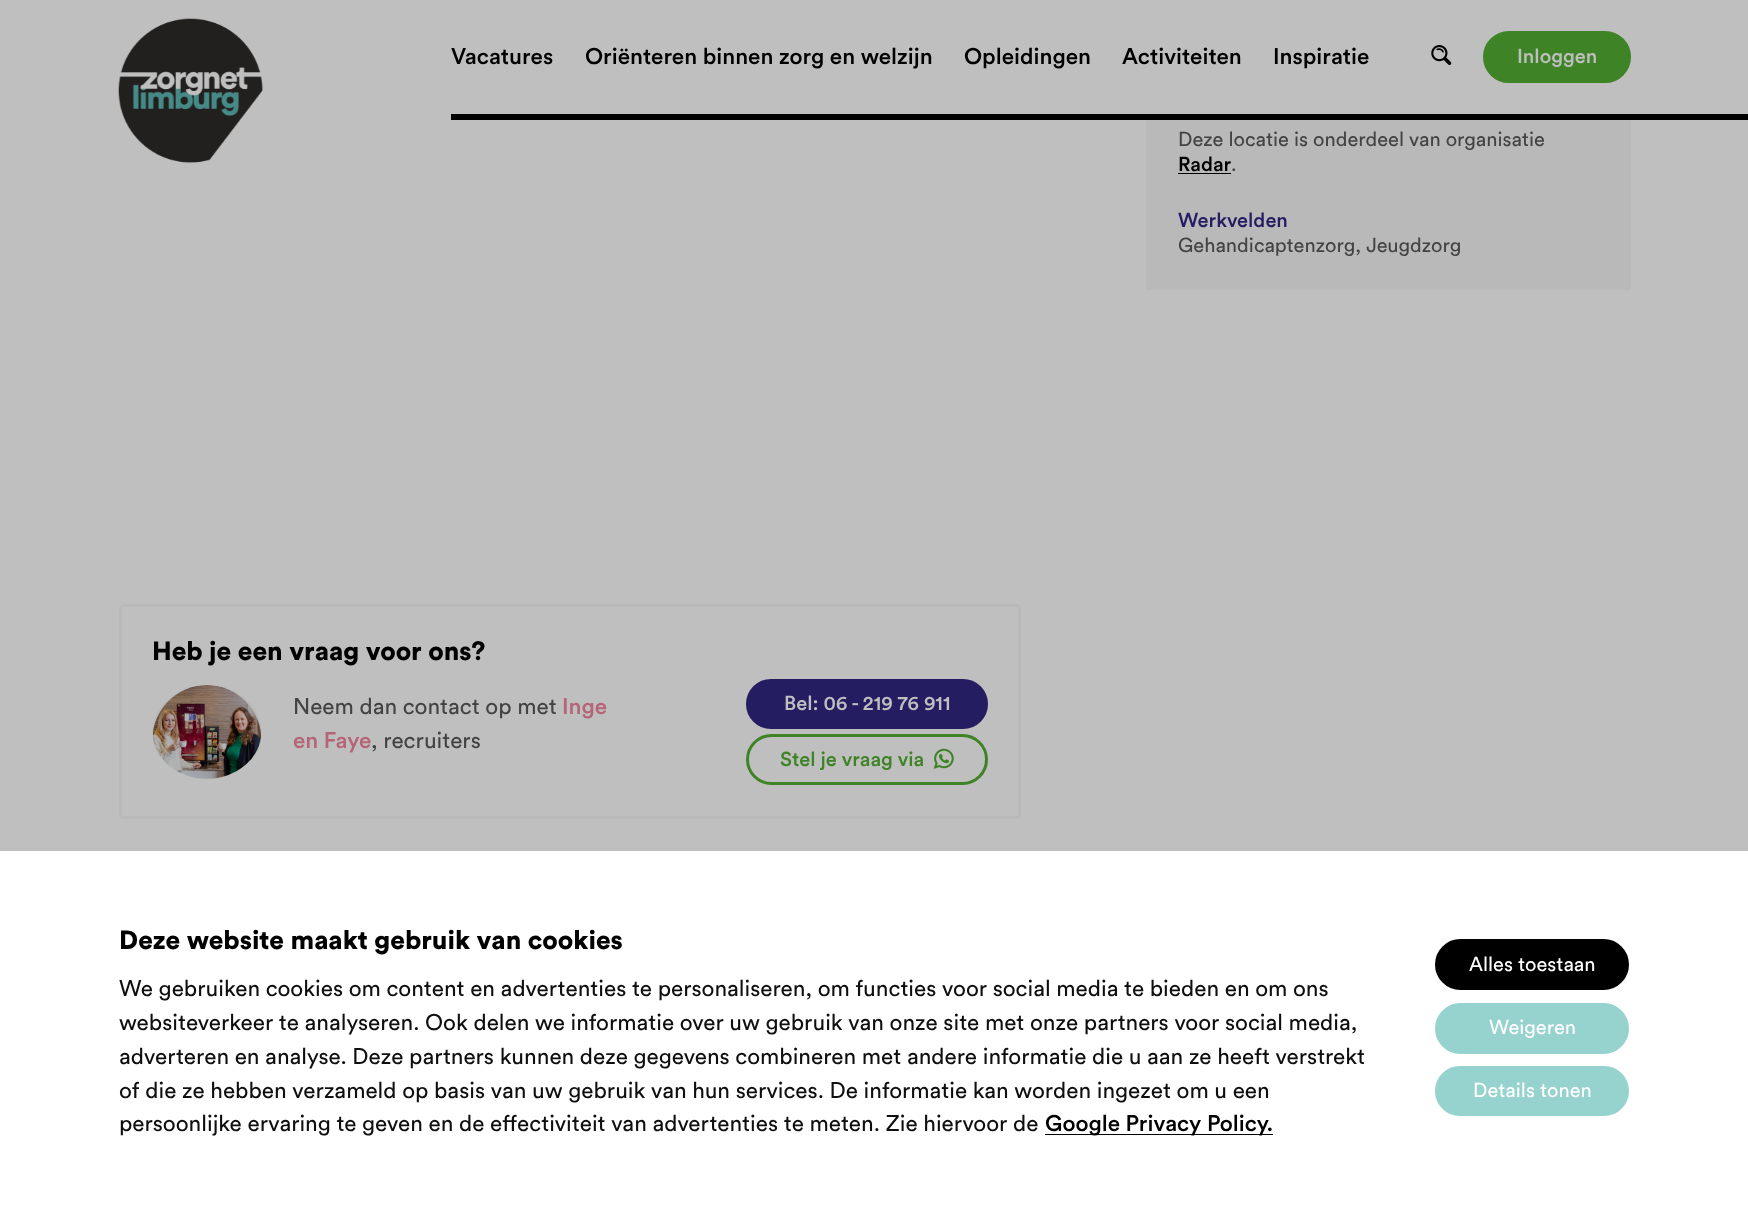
<!DOCTYPE html>
<meta charset="utf-8">
<style>body { margin: 0 } canvas { display: block }</style>
<canvas id="canvas" width="1748" height="1216"></canvas>
<script type="module">
  const canvas = document.getElementById("canvas");
  const g = canvas.getContext("2d");
  g.miterLimit = 4;
  g.fontKerning = "normal";
  function drawText(s, x, y, [font, color]) {
    g.font = font;
    g.fillStyle = color;
    g.fillText(s, x, y);
  }
  function fillBox(x, y, w, h, color) {
    g.fillStyle = color;
    g.fillRect(x, y, w, h);
  }
  async function drawPicture(src, x, y, w, h) {
    const img = new Image();
    img.src = src;
    await img.decode();
    g.drawImage(img, x, y, w, h);
  }

  const s1 = ["500 22.5px Circular", "#000000"];
  const s2 = ["500 20px Circular", "#BFBFBF"];
  const s3 = ["20px Circular", "#434343"];
  const s4 = ["500 20px Circular", "#000000"];
  const s5 = ["500 20px Circular", "#251D62"];
  const s6 = ["900 26.25px Circular", "#000000"];
  const s7 = ["22.5px Circular", "#434343"];
  const s8 = ["500 22.5px Circular", "#B46576"];
  const s9 = ["500 20px Circular", "#3E8326"];
  const s10 = ["22.5px Circular", "#0F0F0F"];
  const s11 = ["20px Circular", "#FFFFFF"];

  fillBox(0, 0, 1748, 1216, "#BFBFBF");
  await drawPicture("pic1.png", 118, 18, 145, 145);
  fillBox(451, 114, 1297, 6, "#000000");
  drawText("Vacatures", 451, 64, s1);
  drawText("Oriënteren binnen zorg en welzijn", 585, 64, s1);
  drawText("Opleidingen", 964, 64, s1);
  drawText("Activiteiten", 1122, 64, s1);
  drawText("Inspiratie", 1273, 64, s1);
  await drawPicture("pic2.png", 1431, 45, 21, 20);
  g.fillStyle = "#3E8326";
  g.beginPath();
  g.roundRect(1484.5, 32.5, 145, 49, 24.5);
  g.fill();
  g.strokeStyle = "#3E8326";
  g.lineWidth = 3;
  g.stroke();
  drawText("Inloggen", 1517, 63, s2);
  fillBox(1146, 120, 485, 170, "#B9B9B9");
  drawText("Deze locatie is onderdeel van organisatie", 1178, 146, s3);
  drawText("Radar", 1178, 171, s4);
  fillBox(1178, 173, 53, 1, "#000000");
  drawText(".", 1231, 171, s3);
  drawText("Werkvelden", 1178, 227, s5);
  drawText("Gehandicaptenzorg, Jeugdzorg", 1178, 252, s3);
  g.beginPath();
  g.roundRect(120.5, 605.5, 899, 212, 3.5);
  g.strokeStyle = "#B9B9B9";
  g.stroke();
  drawText("Heb je een vraag voor ons?", 152, 660, s6);
  g.fillStyle = "#B9B9B9";
  g.beginPath();
  g.ellipse(207, 732, 54.5, 47, 0, 0, Math.PI * 2);
  g.fill();
  await drawPicture("pic3.png", 152, 685, 109, 94);
  drawText("Neem dan contact op met", 293, 714, s7);
  drawText("Inge", 562, 714, s8);
  drawText("en Faye", 293, 748, s8);
  drawText(", recruiters", 371, 748, s7);
  g.fillStyle = "#251D62";
  g.beginPath();
  g.roundRect(747.5, 680.5, 239, 47, 23.5);
  g.fill();
  g.strokeStyle = "#251D62";
  g.stroke();
  drawText("Bel: 06 - 219 76 911", 784, 710, s2);
  g.beginPath();
  g.roundRect(747.5, 735.5, 239, 48, 24);
  g.strokeStyle = "#3E8326";
  g.stroke();
  drawText("Stel je vraag via", 780, 766, s9);
  await drawPicture("pic4.png", 933, 748, 21, 21);
  fillBox(0, 851, 1748, 365, "#FFFFFF");
  drawText("Deze website maakt gebruik van cookies", 119, 949, s6);
  drawText("We gebruiken cookies om content en advertenties te personaliseren, om functies voor social media te bieden en om ons", 119, 996, s10);
  drawText("websiteverkeer te analyseren. Ook delen we informatie over uw gebruik van onze site met onze partners voor social media,", 119, 1030, s10);
  drawText("adverteren en analyse. Deze partners kunnen deze gegevens combineren met andere informatie die u aan ze heeft verstrekt", 119, 1064, s10);
  drawText("of die ze hebben verzameld op basis van uw gebruik van hun services. De informatie kan worden ingezet om u een", 119, 1098, s10);
  drawText("persoonlijke ervaring te geven en de effectiviteit van advertenties te meten. Zie hiervoor de", 119, 1131, s10);
  fillBox(1045, 1134, 228, 1, "#000000");
  drawText("Google Privacy Policy.", 1045, 1131, s1);
  g.beginPath();
  g.roundRect(1436.5, 940.5, 191, 48, 24);
  g.fill();
  g.strokeStyle = "#000000";
  g.stroke();
  drawText("Alles toestaan", 1469, 971, s11);
  g.fillStyle = "#96D2CE";
  g.beginPath();
  g.roundRect(1436.5, 1004.5, 191, 48, 24);
  g.fill();
  g.strokeStyle = "#96D2CE";
  g.stroke();
  drawText("Weigeren", 1489, 1034, s11);
  g.fillStyle = "#96D2CE";
  g.beginPath();
  g.roundRect(1436.5, 1067.5, 191, 47, 23.5);
  g.fill();
  g.stroke();
  drawText("Details tonen", 1473, 1097, s11);
</script>
